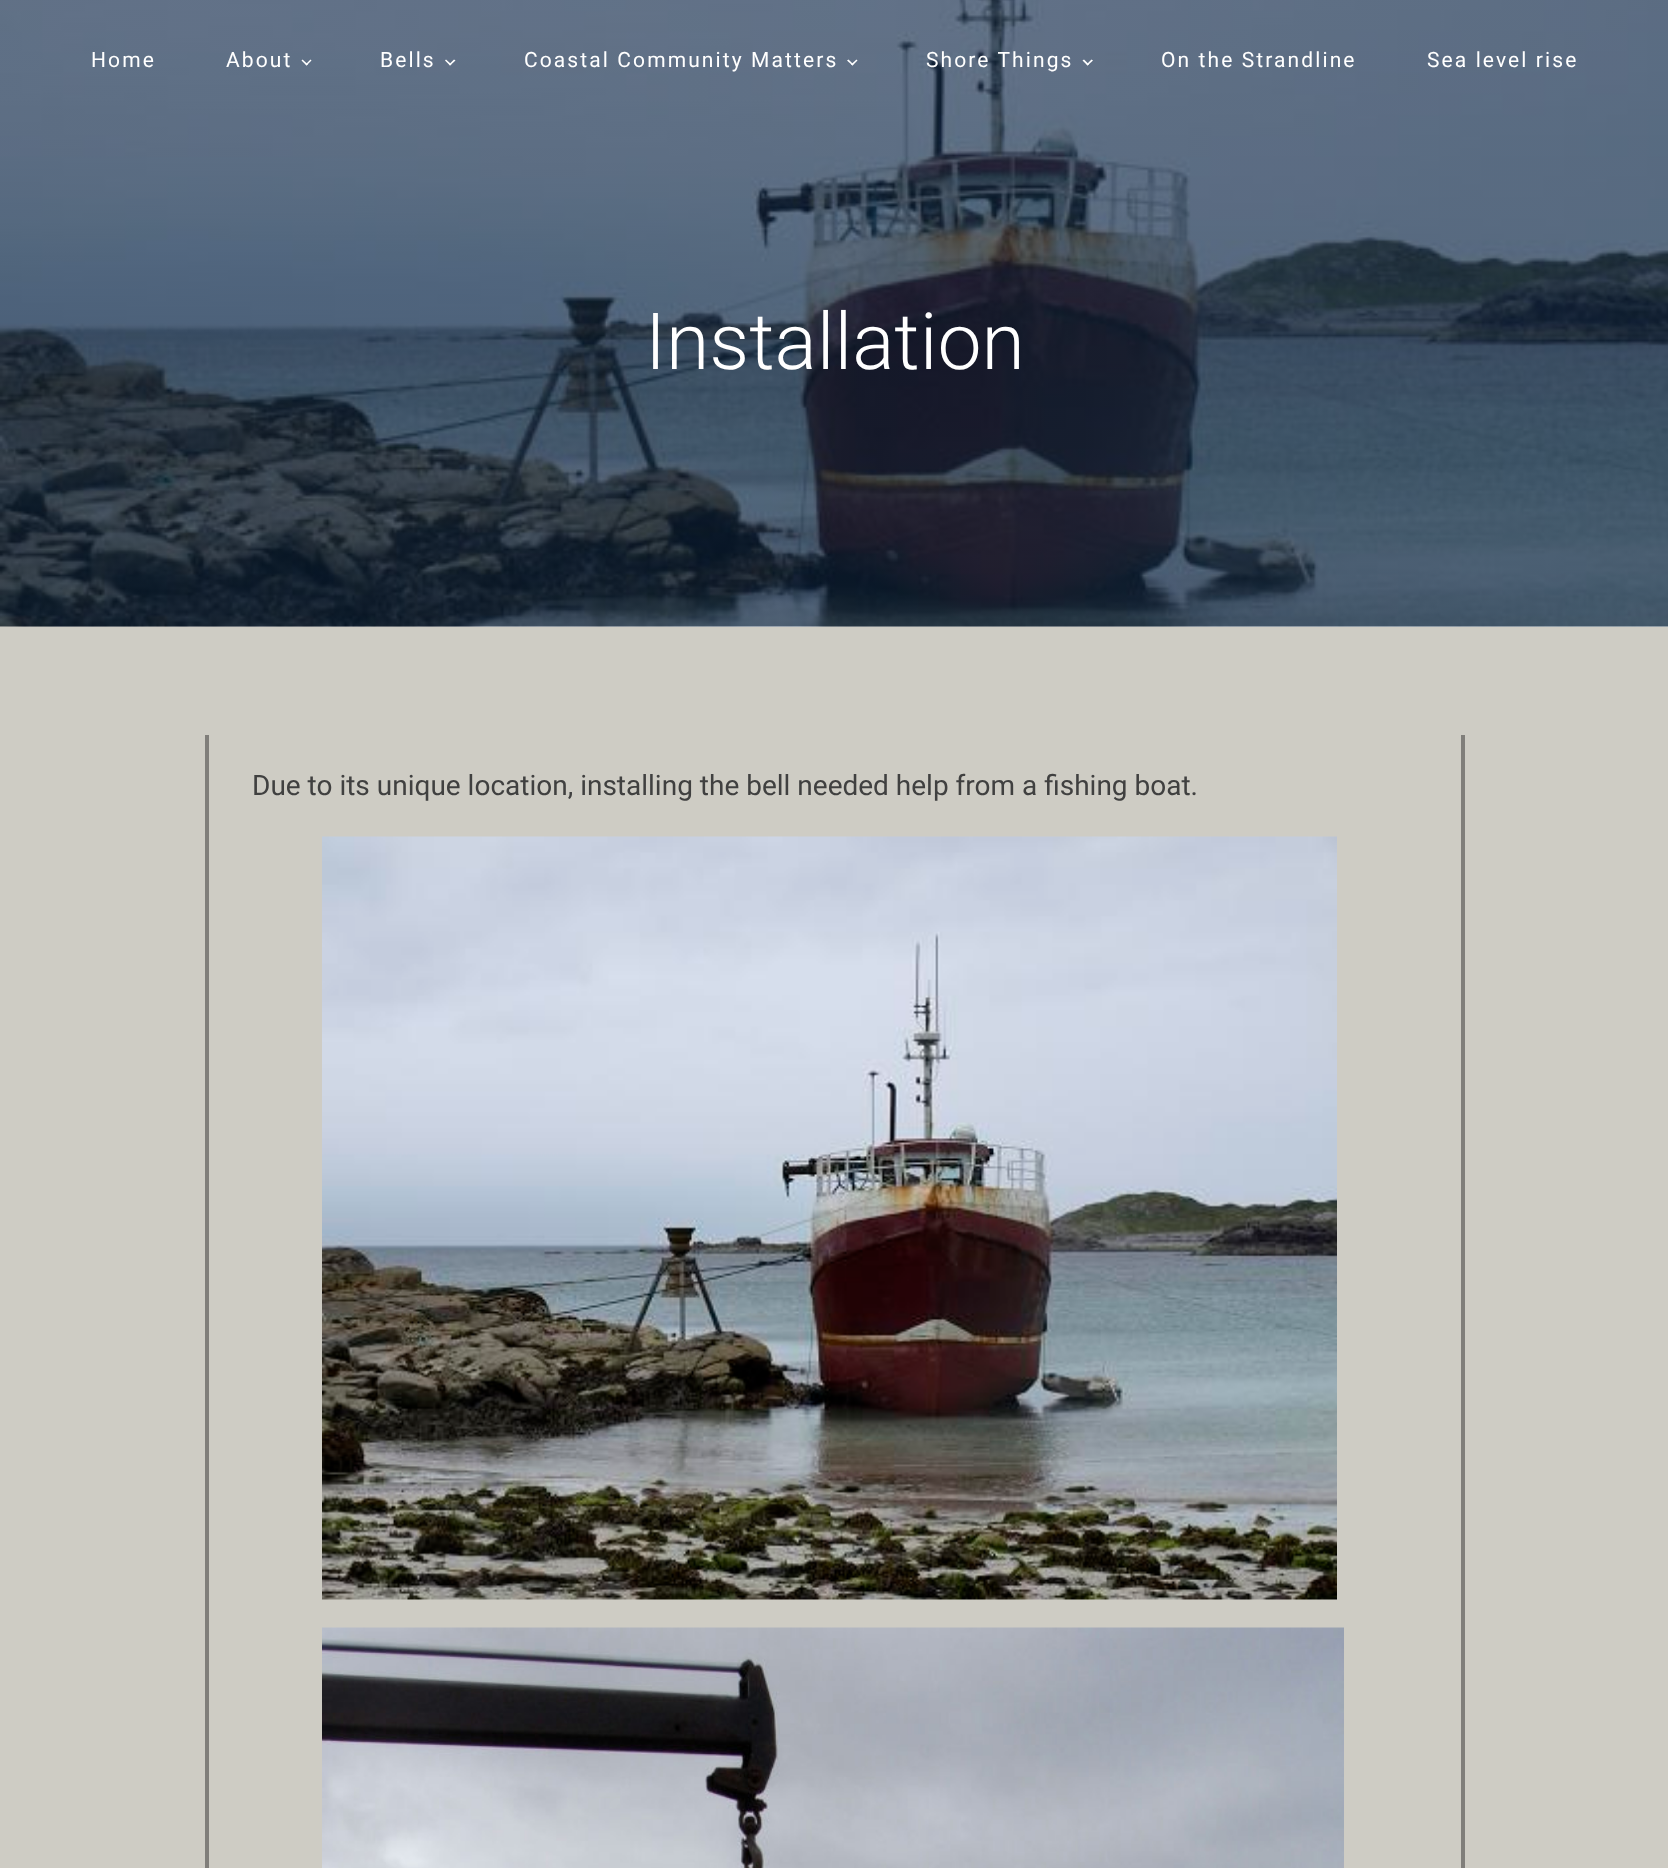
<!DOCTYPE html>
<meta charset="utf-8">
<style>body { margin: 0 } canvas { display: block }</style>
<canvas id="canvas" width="1668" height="1868"></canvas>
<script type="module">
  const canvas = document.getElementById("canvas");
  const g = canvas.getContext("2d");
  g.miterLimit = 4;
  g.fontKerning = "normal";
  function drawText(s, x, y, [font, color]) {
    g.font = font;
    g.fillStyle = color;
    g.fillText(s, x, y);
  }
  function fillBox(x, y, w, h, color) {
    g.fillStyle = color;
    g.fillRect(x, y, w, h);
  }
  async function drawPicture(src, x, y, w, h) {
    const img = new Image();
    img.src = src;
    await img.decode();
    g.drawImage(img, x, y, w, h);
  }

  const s1 = ["21px Roboto", "#FFFFFF"];
  const s2 = ["300 78.75px Roboto", "#FFFFFF"];
  const s3 = ["28px Roboto", "#404040"];

  fillBox(0, 0, 1668, 1868, "#FFFFFF");
  await drawPicture("pic1.png", 0, 0, 1668, 627);
  g.letterSpacing = "2.1px";
  drawText("Home", 91, 67, s1);
  drawText("About", 226, 67, s1);
  g.beginPath();
  g.moveTo(311.5, 60.5);
  g.lineTo(306.5, 65.5);
  g.lineTo(305.5, 64.5);
  g.lineTo(310.5, 59.5);
  g.closePath();
  g.fill();
  g.beginPath();
  g.moveTo(308, 64.5);
  g.lineTo(306.5, 65.5);
  g.lineTo(301.5, 60.5);
  g.lineTo(302.5, 59.5);
  g.closePath();
  g.fill();
  drawText("Bells", 380, 67, s1);
  g.beginPath();
  g.moveTo(455.5, 60.5);
  g.lineTo(450, 65.5);
  g.lineTo(449, 64.5);
  g.lineTo(454, 59.5);
  g.closePath();
  g.fill();
  g.beginPath();
  g.moveTo(451.5, 64.5);
  g.lineTo(450, 65.5);
  g.lineTo(445, 60.5);
  g.lineTo(446, 59.5);
  g.closePath();
  g.fill();
  drawText("Coastal Community Matters", 524, 67, s1);
  g.beginPath();
  g.moveTo(857.5, 60.5);
  g.lineTo(852.5, 65.5);
  g.lineTo(851, 64.5);
  g.lineTo(856.5, 59.5);
  g.closePath();
  g.fill();
  g.beginPath();
  g.moveTo(853.5, 64.5);
  g.lineTo(852.5, 65.5);
  g.lineTo(847, 60.5);
  g.lineTo(848.5, 59.5);
  g.closePath();
  g.fill();
  drawText("Shore Things", 926, 67, s1);
  g.beginPath();
  g.moveTo(1093, 60.5);
  g.lineTo(1087.5, 65.5);
  g.lineTo(1086.5, 64.5);
  g.lineTo(1091.5, 59.5);
  g.closePath();
  g.fill();
  g.beginPath();
  g.moveTo(1089, 64.5);
  g.lineTo(1087.5, 65.5);
  g.lineTo(1082.5, 60.5);
  g.lineTo(1084, 59.5);
  g.closePath();
  g.fill();
  drawText("On the Strandline", 1161, 67, s1);
  drawText("Sea level rise", 1427, 67, s1);
  g.letterSpacing = "0px";
  drawText("Installation", 645, 369, s2);
  fillBox(0, 627, 1668, 1241, "#CECCC4");
  fillBox(1461, 735, 4, 1133, "#807E7A");
  fillBox(205, 735, 4, 1133, "#807E7A");
  drawText("Due to its unique location, installing the bell needed help from a fishing boat.", 252, 795, s3);
  await drawPicture("pic2.png", 322, 836, 1015, 764);
  await drawPicture("pic3.png", 322, 1627, 1022, 241);
</script>
